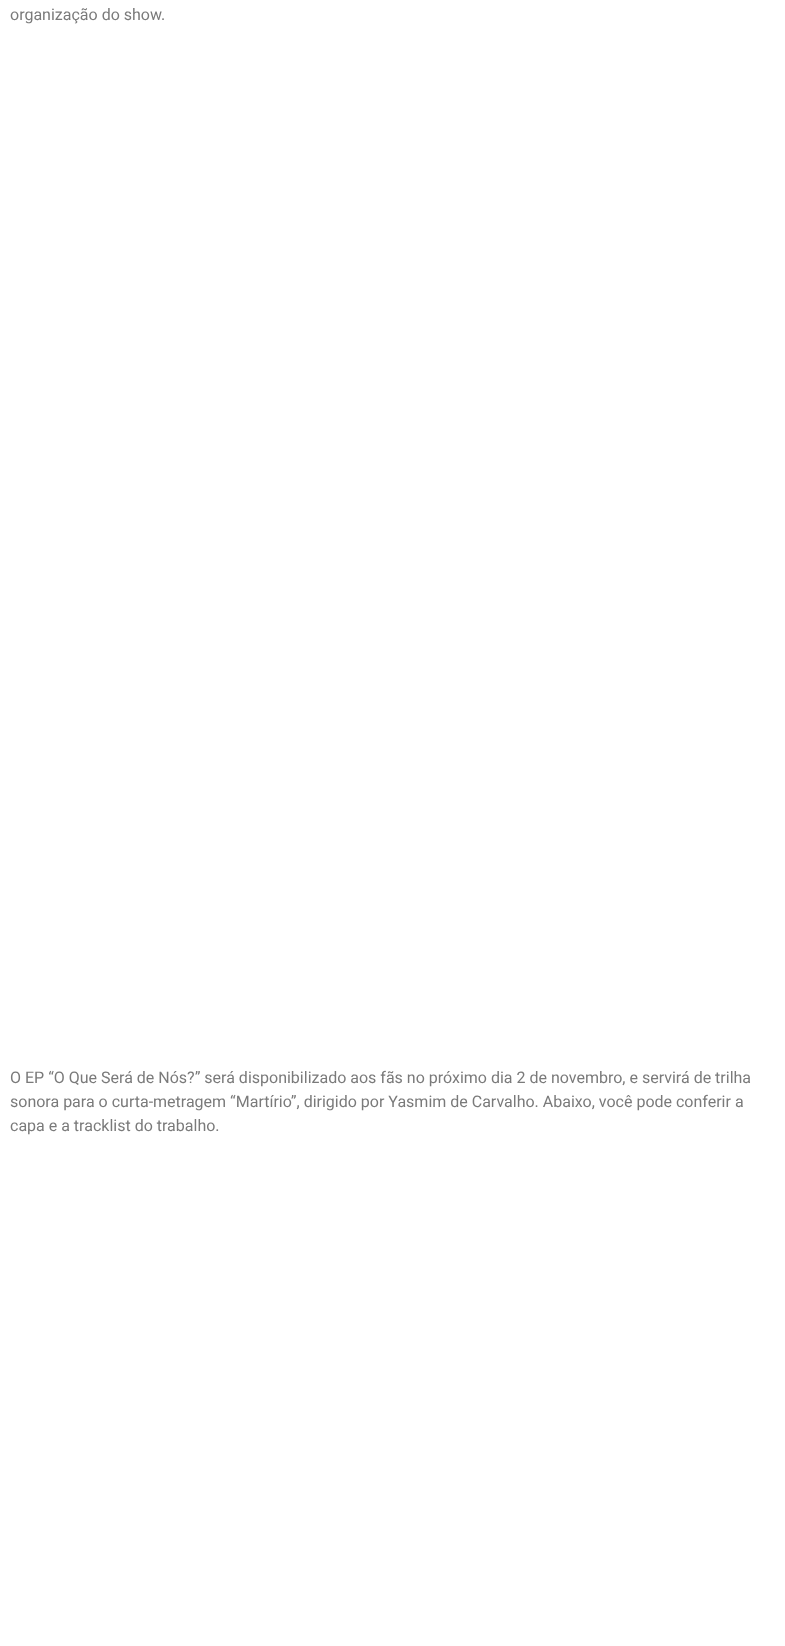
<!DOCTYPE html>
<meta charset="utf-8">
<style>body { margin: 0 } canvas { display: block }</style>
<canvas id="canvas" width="785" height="1646"></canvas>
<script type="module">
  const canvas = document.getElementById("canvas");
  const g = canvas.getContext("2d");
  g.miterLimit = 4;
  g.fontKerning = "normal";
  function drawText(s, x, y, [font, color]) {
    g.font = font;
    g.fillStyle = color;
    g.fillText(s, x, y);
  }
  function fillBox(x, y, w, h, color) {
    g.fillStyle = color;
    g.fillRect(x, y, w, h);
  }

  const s1 = ["16px Roboto", "#7A7A7A"];

  fillBox(0, 0, 785, 1646, "#FFFFFF");
  drawText("organização do show.", 10, 20, s1);
  drawText("O EP “O Que Será de Nós?” será disponibilizado aos fãs no próximo dia 2 de novembro, e servirá de trilha", 10, 1083, s1);
  drawText("sonora para o curta-metragem “Martírio”, dirigido por Yasmim de Carvalho. Abaixo, você pode conferir a", 10, 1107, s1);
  drawText("capa e a tracklist do trabalho.", 10, 1131, s1);
</script>
